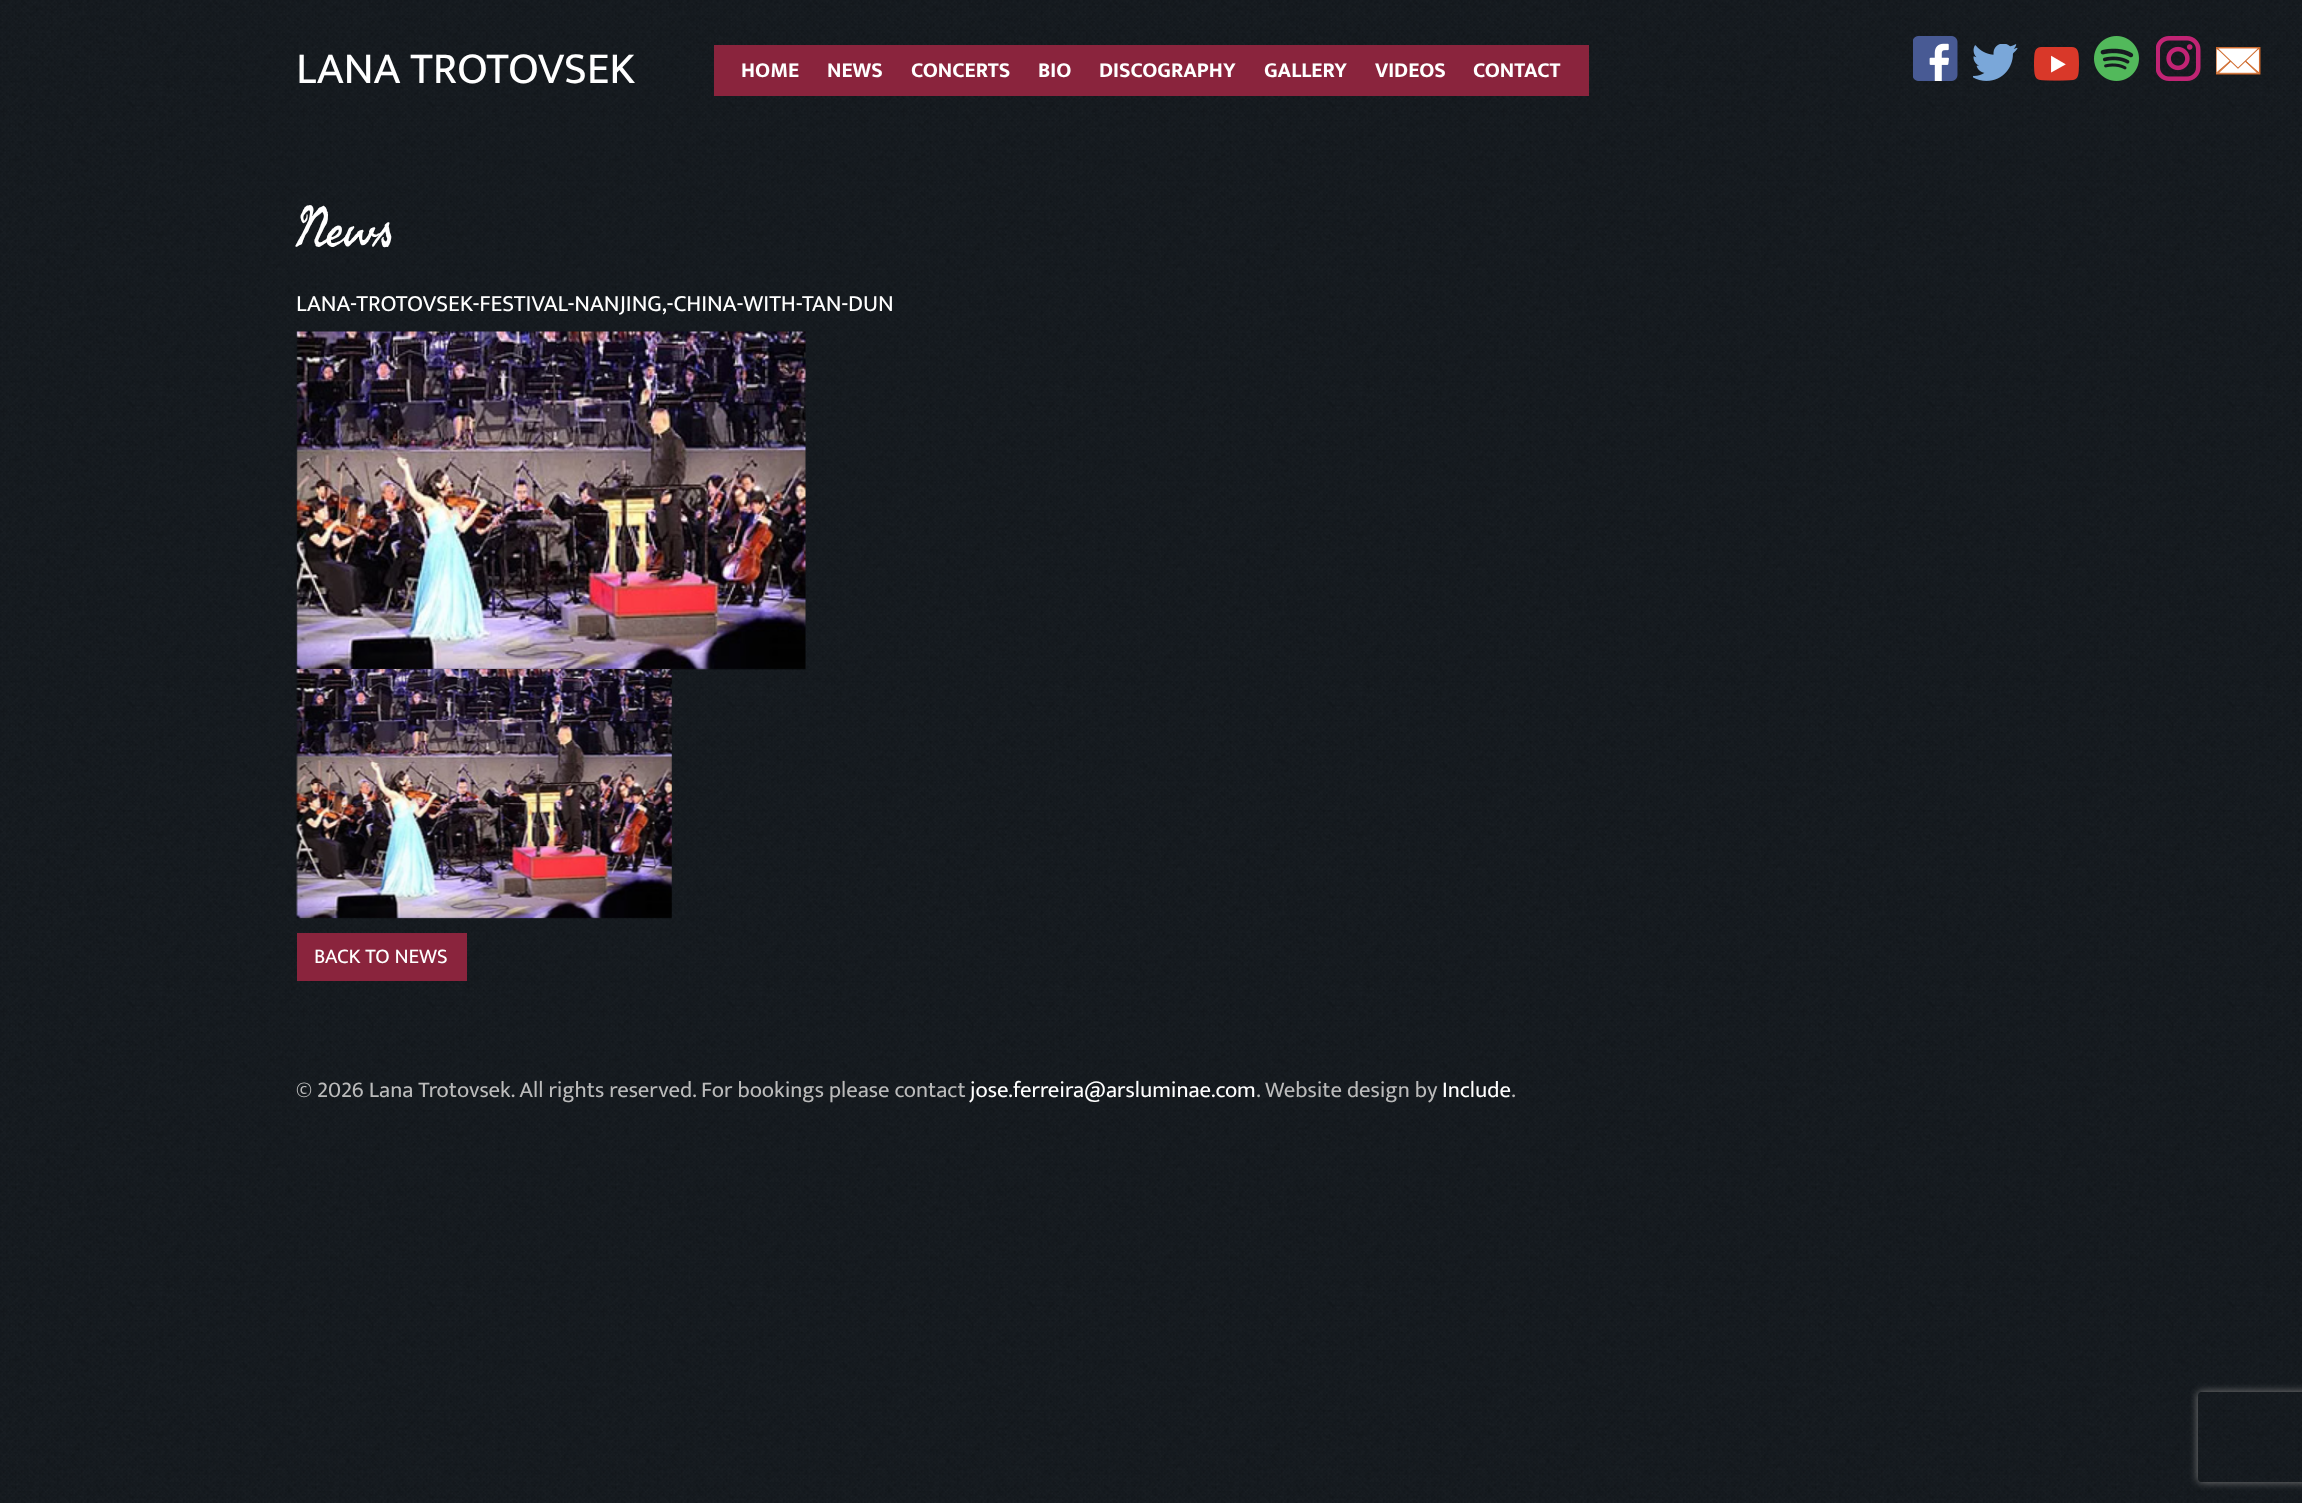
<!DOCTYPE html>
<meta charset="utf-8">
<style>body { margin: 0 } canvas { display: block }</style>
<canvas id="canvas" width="2302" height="1503"></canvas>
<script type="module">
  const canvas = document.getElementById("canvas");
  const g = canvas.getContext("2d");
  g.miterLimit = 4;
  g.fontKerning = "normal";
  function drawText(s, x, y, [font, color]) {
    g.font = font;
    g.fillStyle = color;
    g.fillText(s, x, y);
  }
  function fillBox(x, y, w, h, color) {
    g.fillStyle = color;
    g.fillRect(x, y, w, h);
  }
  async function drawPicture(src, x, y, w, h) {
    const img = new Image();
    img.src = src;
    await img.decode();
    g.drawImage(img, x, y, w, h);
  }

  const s1 = ["45px Mukta", "#FFFFFF"];
  const s2 = ["bold 21.5px Mukta", "#FFFFFF"];
  const s3 = ["54px Seaweed Script", "#FFFFFF"];
  const s4 = ["23.4px Mukta", "#FFFFFF"];
  const s5 = ["21px Mukta", "#FFFFFF"];
  const s6 = ["22.7px Mukta", "#BBBBBB"];
  const s7 = ["22.7px Mukta", "#FFFFFF"];

  fillBox(0, 0, 2302, 1503, "#FFFFFF");
  await drawPicture("pic1.png", 0, 0, 2302, 1503);
  drawText("LANA TROTOVSEK", 296, 83, s1);
  fillBox(714, 45, 875, 51, "#8A243D");
  drawText("HOME", 741, 77, s2);
  drawText("NEWS", 827, 77, s2);
  drawText("CONCERTS", 911, 77, s2);
  drawText("BIO", 1038, 77, s2);
  drawText("DISCOGRAPHY", 1099, 77, s2);
  drawText("GALLERY", 1264, 77, s2);
  drawText("VIDEOS", 1375, 77, s2);
  drawText("CONTACT", 1473, 77, s2);
  await drawPicture("pic2.png", 1913, 36, 45, 45);
  await drawPicture("pic3.png", 1973, 44, 45, 37);
  await drawPicture("pic4.png", 2034, 47, 45, 34);
  await drawPicture("pic5.png", 2094, 36, 45, 45);
  await drawPicture("pic6.png", 2156, 36, 45, 45);
  await drawPicture("pic7.png", 2216, 47, 45, 28);
  drawText("News", 296, 245, s3);
  drawText("LANA-TROTOVSEK-FESTIVAL-NANJING,-CHINA-WITH-TAN-DUN", 296, 311, s4);
  await drawPicture("pic8.png", 296, 331, 510, 339);
  await drawPicture("pic9.png", 296, 669, 376, 250);
  fillBox(297, 933, 170, 48, "#8A243D");
  drawText("BACK TO NEWS", 314, 963, s5);
  drawText("© 2026 Lana Trotovsek. All rights reserved. For bookings please contact", 296, 1097, s6);
  drawText("jose.ferreira@arsluminae.com", 970, 1097, s7);
  drawText(". Website design by", 1256, 1097, s6);
  drawText("Include", 1442, 1097, s7);
  drawText(".", 1511, 1097, s6);
  g.save();
  g.beginPath();
  g.moveTo(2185, 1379);
  g.lineTo(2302, 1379);
  g.lineTo(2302, 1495);
  g.lineTo(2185, 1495);
  g.closePath();
  g.moveTo(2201, 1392);
  g.lineTo(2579, 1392);
  g.bezierCurveTo(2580.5, 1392, 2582, 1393.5, 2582, 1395);
  g.lineTo(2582, 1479);
  g.bezierCurveTo(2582, 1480.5, 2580.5, 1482, 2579, 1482);
  g.lineTo(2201, 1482);
  g.bezierCurveTo(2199.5, 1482, 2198, 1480.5, 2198, 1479);
  g.lineTo(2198, 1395);
  g.bezierCurveTo(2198, 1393.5, 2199.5, 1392, 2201, 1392);
  g.closePath();
  g.clip("evenodd");
  g.fillStyle = "#808080";
  g.filter = "blur(4px)";
  g.beginPath();
  g.roundRect(2198, 1392, 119, 90, 3);
  g.fill();
  g.filter = "none";
  g.restore();
</script>
